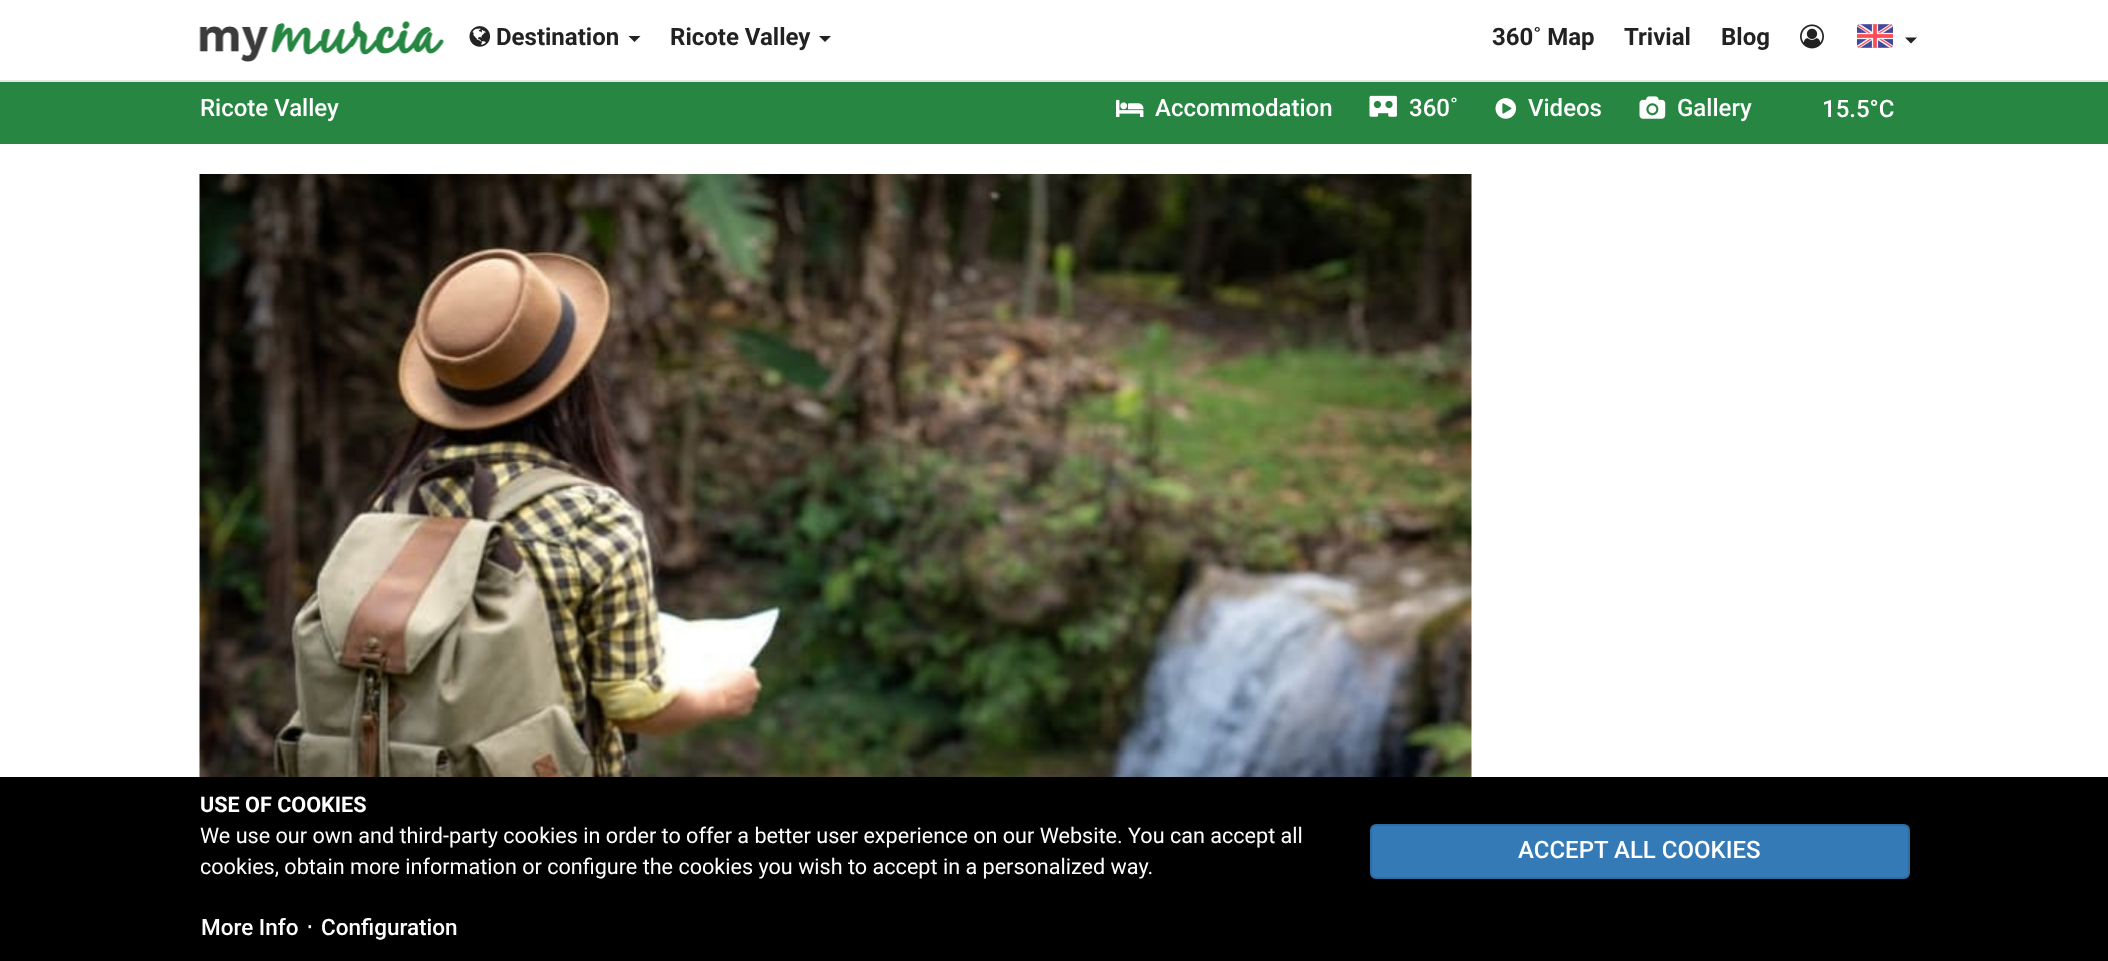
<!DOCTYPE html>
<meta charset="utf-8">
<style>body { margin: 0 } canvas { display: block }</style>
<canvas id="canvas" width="2108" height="961"></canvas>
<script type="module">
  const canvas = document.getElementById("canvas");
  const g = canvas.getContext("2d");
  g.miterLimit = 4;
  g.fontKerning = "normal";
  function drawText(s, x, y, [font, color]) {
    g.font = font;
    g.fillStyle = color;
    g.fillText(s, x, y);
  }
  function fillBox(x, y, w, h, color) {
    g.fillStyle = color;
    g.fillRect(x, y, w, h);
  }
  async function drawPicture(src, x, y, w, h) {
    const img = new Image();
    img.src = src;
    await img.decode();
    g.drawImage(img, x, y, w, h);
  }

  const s1 = ["bold 24px Roboto", "#222222"];
  const s2 = ["500 24px Roboto", "#FFFFFF"];
  const s3 = ["bold 21.6px Roboto", "#FFFFFF"];
  const s4 = ["21.6px Roboto", "#FFFFFF"];
  const s5 = ["500 22.5px Roboto", "#FFFFFF"];
  const s6 = ["24px DejaVu Sans", "#FFFFFF"];

  fillBox(0, 0, 2108, 961, "#FFFFFF");
  fillBox(0, 80, 2108, 2, "#E7E7E7");
  await drawPicture("pic1.png", 199, 21, 245, 41);
  await drawPicture("pic2.png", 469, 26, 22, 21);
  drawText("Destination", 496, 45, s1);
  g.beginPath();
  g.moveTo(628.5, 36);
  g.lineTo(640.5, 36);
  g.lineTo(634.5, 42);
  g.closePath();
  g.fill();
  drawText("Ricote Valley", 670, 45, s1);
  g.beginPath();
  g.moveTo(819, 36);
  g.lineTo(831, 36);
  g.lineTo(825, 42);
  g.closePath();
  g.fill();
  drawText("360˚ Map", 1492, 45, s1);
  drawText("Trivial", 1624, 45, s1);
  drawText("Blog", 1721, 45, s1);
  await drawPicture("pic3.png", 1800, 24, 24, 25);
  await drawPicture("pic4.png", 1857, 24, 36, 24);
  g.beginPath();
  g.moveTo(1905, 37.5);
  g.lineTo(1917, 37.5);
  g.lineTo(1911, 43.5);
  g.closePath();
  g.fill();
  fillBox(0, 82, 2108, 62, "#278742");
  drawText("Ricote Valley", 200, 116, s2);
  await drawPicture("pic5.png", 1116, 99, 28, 18);
  drawText("Accommodation", 1155, 116, s2);
  await drawPicture("pic6.png", 1369, 95, 28, 22);
  drawText("360˚", 1409, 116, s2);
  await drawPicture("pic7.png", 1495, 98, 22, 21);
  drawText("Videos", 1528, 116, s2);
  await drawPicture("pic8.png", 1639, 96, 27, 23);
  drawText("Gallery", 1677, 116, s2);
  drawText("15.5°C", 1822, 117, s2);
  await drawPicture("pic9.png", 199, 174, 1273, 603);
  fillBox(0, 777, 2108, 184, "#000000");
  drawText("USE OF COOKIES", 200, 812, s3);
  drawText("We use our own and third-party cookies in order to offer a better user experience on our Website. You can accept all", 200, 843, s4);
  drawText("cookies, obtain more information or configure the cookies you wish to accept in a personalized way.", 200, 874, s4);
  g.fillStyle = "#337AB7";
  g.beginPath();
  g.roundRect(1371, 825, 538, 53, 5);
  g.fill();
  g.strokeStyle = "#2E6DA4";
  g.lineWidth = 2;
  g.stroke();
  drawText("ACCEPT ALL COOKIES", 1518, 858, s2);
  drawText("More Info", 201, 935, s5);
  drawText("⋅", 306, 935, s6);
  drawText("Configuration", 321, 935, s5);
</script>
